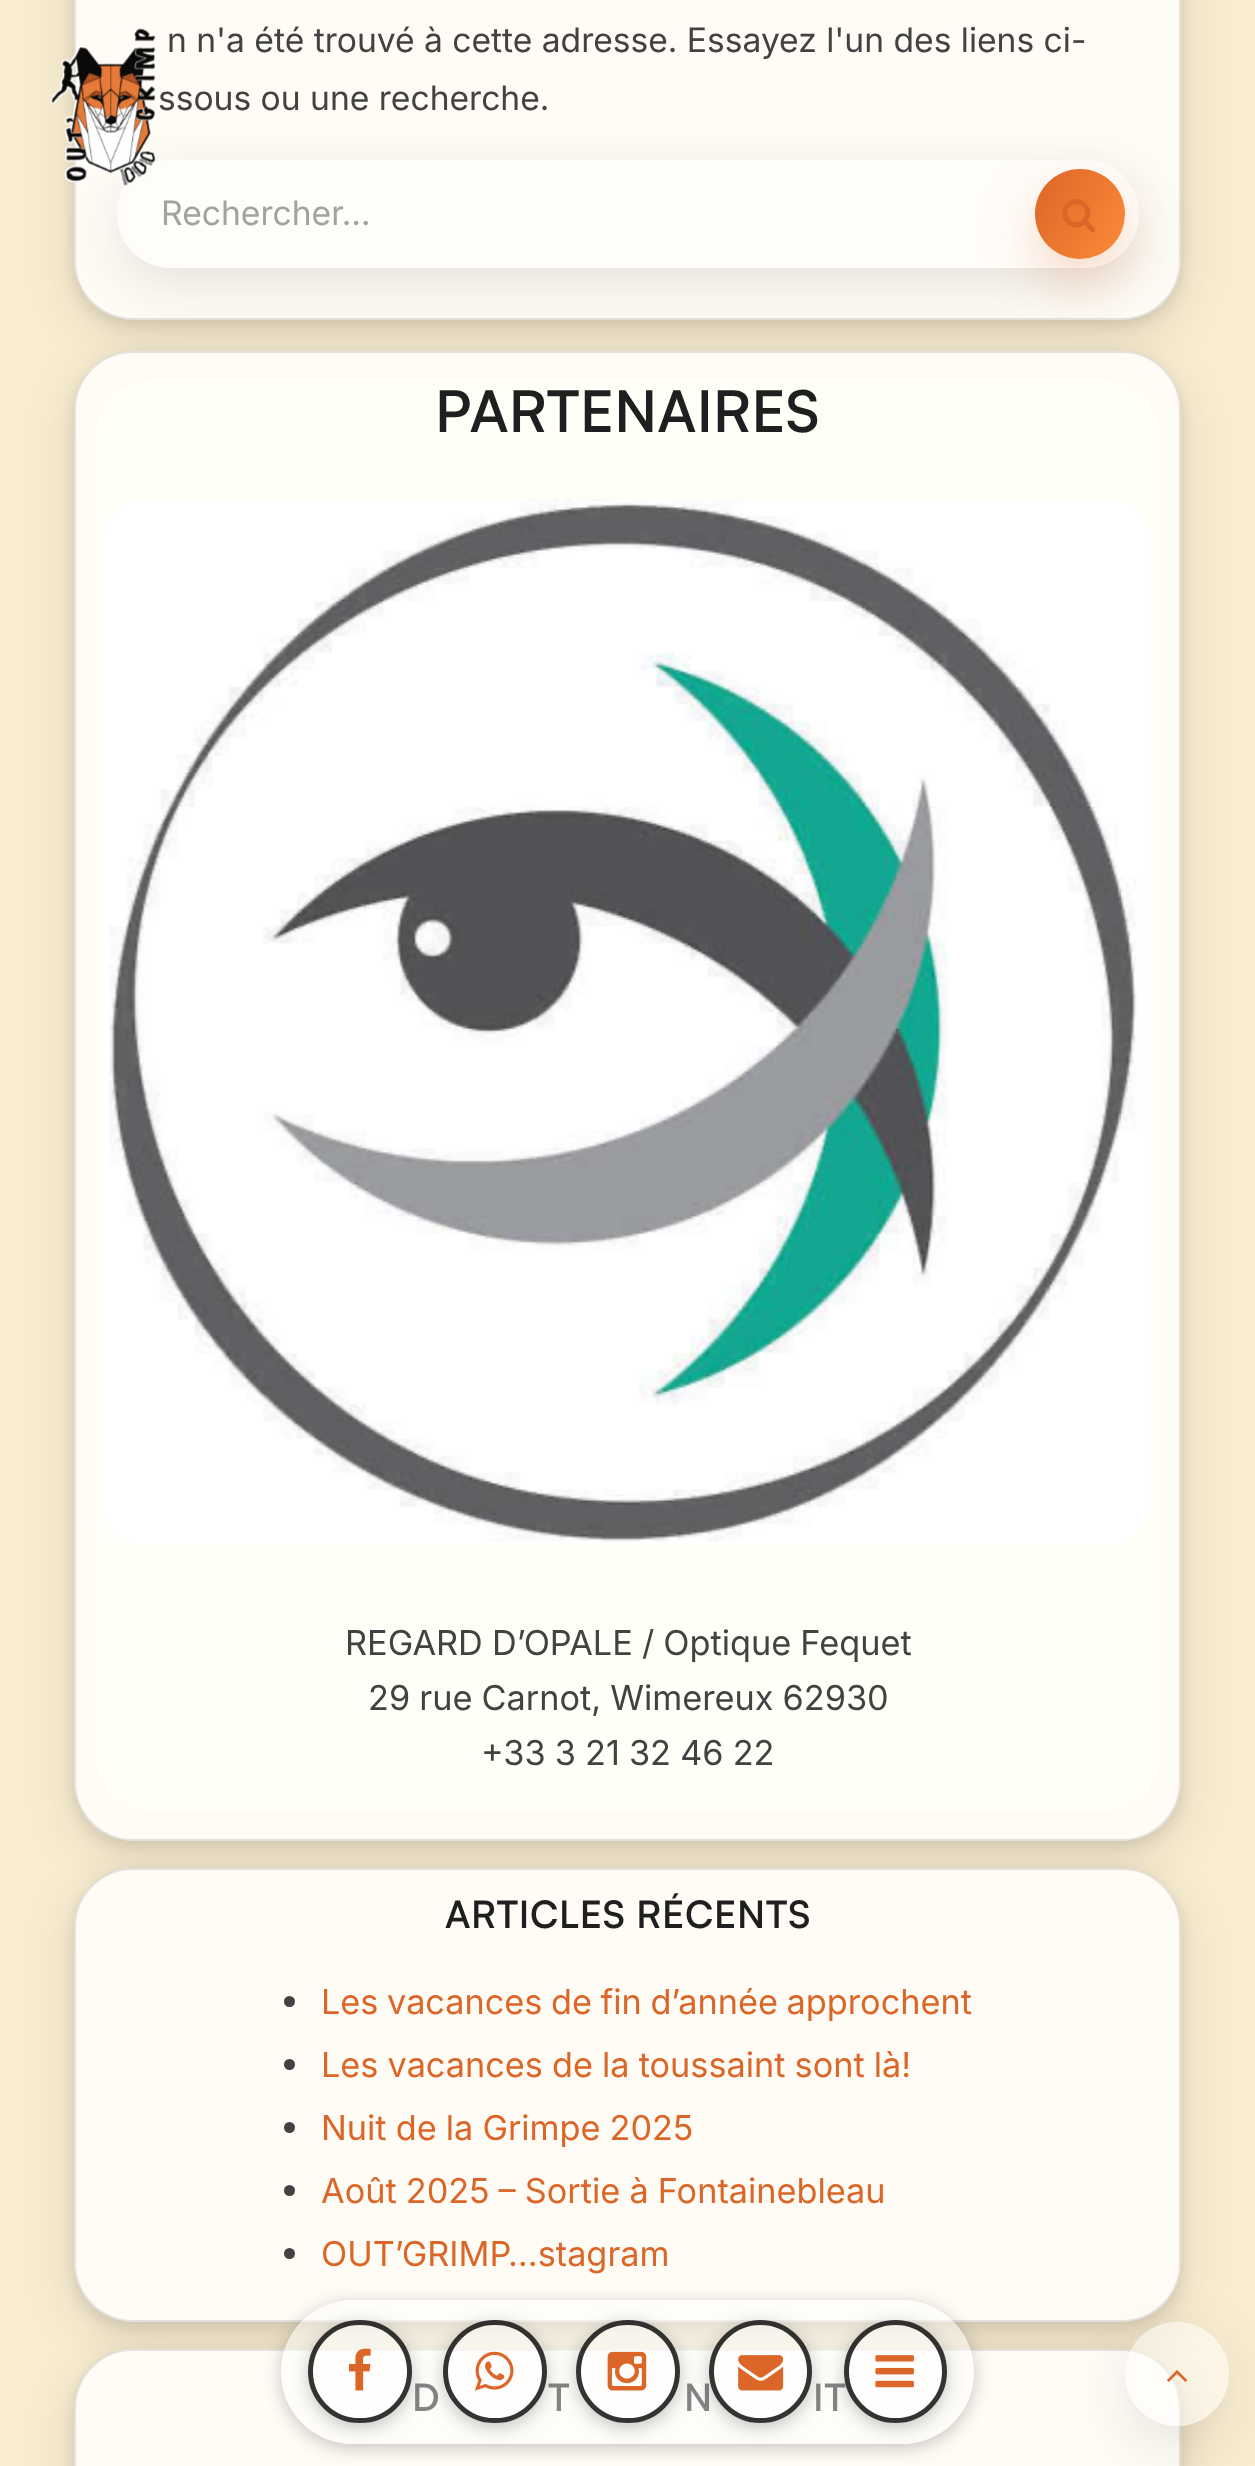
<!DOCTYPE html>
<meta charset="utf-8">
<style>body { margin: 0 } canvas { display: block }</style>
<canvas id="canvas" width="1255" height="2466"></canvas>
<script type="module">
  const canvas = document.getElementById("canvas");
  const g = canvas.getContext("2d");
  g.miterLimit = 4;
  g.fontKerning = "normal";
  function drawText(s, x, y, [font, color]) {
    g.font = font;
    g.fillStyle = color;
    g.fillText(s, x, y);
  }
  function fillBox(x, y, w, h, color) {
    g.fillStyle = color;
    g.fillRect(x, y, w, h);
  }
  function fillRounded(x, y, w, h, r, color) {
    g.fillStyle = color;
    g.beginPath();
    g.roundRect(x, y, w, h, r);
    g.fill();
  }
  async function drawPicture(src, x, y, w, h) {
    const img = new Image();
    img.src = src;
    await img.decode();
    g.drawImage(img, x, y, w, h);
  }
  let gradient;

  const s1 = ["33.75px Inter", "#424242"];
  const s2 = ["33.75px Inter", "#A3A2A0"];
  const s3 = ["600 57.5px Satoshi", "#1F1F1F"];
  const s4 = ["34.25px 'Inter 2'", "#424242"];
  const s5 = ["600 37.75px Satoshi", "#1F1F1F"];
  const s6 = ["34.25px 'Inter 2'", "#DB6627"];

  fillBox(0, 0, 1255, 2466, "#F9EDD1");
  g.fillStyle = "rgba(0, 0, 0, 0.08)";
  g.filter = "blur(7px)";
  g.beginPath();
  g.roundRect(74, -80, 1107, 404, 59);
  g.fill();
  g.filter = "none";
  g.fillStyle = "rgba(0, 0, 0, 0.12)";
  g.filter = "blur(22.5px)";
  g.beginPath();
  g.roundRect(74, -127, 1107, 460, 59);
  g.fill();
  g.filter = "none";
  fillRounded(74, -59, 1107, 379, 59, "#FFFCF6");
  g.beginPath();
  g.roundRect(75, -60, 1105, 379, 58);
  g.strokeStyle = "rgba(0, 0, 0, 0.1)";
  g.lineWidth = 2;
  g.stroke();
  drawText("n n'a été trouvé à cette adresse. Essayez l'un des liens ci-", 167, 52, s1);
  drawText("ssous ou une recherche.", 158, 110, s1);
  g.save();
  g.beginPath();
  g.moveTo(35, 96);
  g.lineTo(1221, 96);
  g.lineTo(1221, 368);
  g.lineTo(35, 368);
  g.closePath();
  g.moveTo(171, 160);
  g.lineTo(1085, 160);
  g.bezierCurveTo(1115, 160, 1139, 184, 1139, 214);
  g.bezierCurveTo(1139, 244, 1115, 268, 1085, 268);
  g.lineTo(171, 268);
  g.bezierCurveTo(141, 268, 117, 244, 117, 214);
  g.bezierCurveTo(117, 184, 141, 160, 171, 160);
  g.closePath();
  g.clip("evenodd");
  g.fillStyle = "rgba(15, 15, 15, 0.1)";
  g.filter = "blur(27px)";
  g.beginPath();
  g.roundRect(117, 178, 1022, 108, 54);
  g.fill();
  g.filter = "none";
  g.restore();
  fillRounded(117, 160, 1022, 108, 54, "rgba(255, 255, 255, 0.46)");
  drawText("Rechercher…", 161, 225, s2);
  g.fillStyle = "rgba(219, 102, 39, 0.24)";
  g.filter = "blur(27px)";
  g.beginPath();
  g.roundRect(1035, 191, 90, 90, 45);
  g.fill();
  g.filter = "none";
  gradient = g.createLinearGradient(1019, 197, 1231, 320);
  gradient.addColorStop(0, "#DB6627");
  gradient.addColorStop(0.52, "#FF8C3A");
  gradient.addColorStop(1, "#FFC75F");
  g.fillStyle = gradient;
  g.beginPath();
  g.arc(1080, 214, 45, 0, Math.PI * 2);
  g.fill();
  await drawPicture("pic1.png", 1062, 199, 34, 34);
  g.fillStyle = "rgba(0, 0, 0, 0.08)";
  g.filter = "blur(7px)";
  g.beginPath();
  g.roundRect(74, 356, 1107, 1489, 59);
  g.fill();
  g.filter = "none";
  g.fillStyle = "rgba(0, 0, 0, 0.12)";
  g.filter = "blur(22.5px)";
  g.beginPath();
  g.roundRect(74, 365, 1107, 1489, 59);
  g.fill();
  g.filter = "none";
  fillRounded(74, 351, 1107, 1490, 59, "#FFFCF6");
  g.beginPath();
  g.roundRect(75, 352, 1105, 1488, 58);
  g.stroke();
  fillRounded(97, 380, 1062, 1431, 56, "#FFFFF7");
  g.letterSpacing = "0.4px";
  drawText("PARTENAIRES", 435, 432, s3);
  await drawPicture("pic2.png", 103, 499, 1047, 1046);
  g.letterSpacing = "0px";
  g.wordSpacing = "-0.5px";
  drawText("REGARD D’OPALE / Optique Fequet", 345, 1655, s4);
  drawText("29 rue Carnot, Wimereux 62930", 368, 1710, s4);
  drawText("+33 3 21 32 46 22", 481, 1765, s4);
  g.fillStyle = "rgba(0, 0, 0, 0.08)";
  g.filter = "blur(7px)";
  g.beginPath();
  g.roundRect(74, 1872, 1107, 455, 59);
  g.fill();
  g.filter = "none";
  g.fillStyle = "rgba(0, 0, 0, 0.12)";
  g.filter = "blur(22.5px)";
  g.beginPath();
  g.roundRect(74, 1881, 1107, 455, 59);
  g.fill();
  g.filter = "none";
  fillRounded(74, 1868, 1107, 454, 59, "#FFFCF6");
  g.beginPath();
  g.roundRect(75, 1869, 1105, 452, 58);
  g.stroke();
  g.letterSpacing = "0.7px";
  g.wordSpacing = "0px";
  drawText("ARTICLES RÉCENTS", 445, 1928, s5);
  g.fillStyle = "#424242";
  g.beginPath();
  g.arc(289.5, 2001.5, 5.5, 0, Math.PI * 2);
  g.fill();
  g.letterSpacing = "0px";
  g.wordSpacing = "-1px";
  drawText("Les vacances de fin d’année approchent", 321, 2014, s6);
  g.fillStyle = "#424242";
  g.beginPath();
  g.arc(289.5, 2064.5, 5.5, 0, Math.PI * 2);
  g.fill();
  g.wordSpacing = "-0.5px";
  drawText("Les vacances de la toussaint sont là!", 321, 2077, s6);
  g.fillStyle = "#424242";
  g.beginPath();
  g.arc(289.5, 2127.5, 5.5, 0, Math.PI * 2);
  g.fill();
  drawText("Nuit de la Grimpe 2025", 321, 2140, s6);
  g.fillStyle = "#424242";
  g.beginPath();
  g.arc(289.5, 2190.5, 5.5, 0, Math.PI * 2);
  g.fill();
  drawText("Août 2025 – Sortie à Fontainebleau", 321, 2203, s6);
  g.fillStyle = "#424242";
  g.beginPath();
  g.arc(289.5, 2253.5, 5.5, 0, Math.PI * 2);
  g.fill();
  g.wordSpacing = "0px";
  drawText("OUT’GRIMP…stagram", 321, 2266, s6);
  g.fillStyle = "rgba(0, 0, 0, 0.08)";
  g.filter = "blur(7px)";
  g.beginPath();
  g.roundRect(74, 2354, 1107, 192, 59);
  g.fill();
  g.filter = "none";
  g.fillStyle = "rgba(0, 0, 0, 0.12)";
  g.filter = "blur(22.5px)";
  g.beginPath();
  g.roundRect(74, 2363, 1107, 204, 59);
  g.fill();
  g.filter = "none";
  fillRounded(74, 2349, 1107, 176, 59, "#FFFCF6");
  g.beginPath();
  g.roundRect(75, 2350, 1105, 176, 58);
  g.stroke();
  g.letterSpacing = "0.7px";
  drawText("D", 412, 2411, s5);
  drawText("T", 548, 2411, s5);
  drawText("N", 684, 2411, s5);
  drawText("IT", 813, 2411, s5);
  await drawPicture("pic3.png", 50, 27, 108, 160);
  g.save();
  g.beginPath();
  g.moveTo(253, 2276);
  g.lineTo(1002, 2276);
  g.lineTo(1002, 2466);
  g.lineTo(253, 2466);
  g.closePath();
  g.moveTo(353, 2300);
  g.lineTo(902, 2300);
  g.bezierCurveTo(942, 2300, 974, 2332, 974, 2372);
  g.bezierCurveTo(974, 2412, 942, 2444, 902, 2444);
  g.lineTo(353, 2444);
  g.bezierCurveTo(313, 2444, 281, 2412, 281, 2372);
  g.bezierCurveTo(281, 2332, 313, 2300, 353, 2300);
  g.closePath();
  g.clip("evenodd");
  g.fillStyle = "rgba(0, 0, 0, 0.22)";
  g.filter = "blur(9px)";
  g.beginPath();
  g.roundRect(281, 2304, 693, 144, 72);
  g.fill();
  g.filter = "none";
  g.restore();
  fillRounded(281, 2300, 693, 144, 72, "rgba(255, 255, 255, 0.46)");
  g.beginPath();
  g.roundRect(282, 2301, 691, 142, 71);
  g.strokeStyle = "rgba(255, 255, 255, 0.16)";
  g.stroke();
  g.save();
  g.beginPath();
  g.moveTo(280, 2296);
  g.lineTo(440, 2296);
  g.lineTo(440, 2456);
  g.lineTo(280, 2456);
  g.closePath();
  g.moveTo(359.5, 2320);
  g.lineTo(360.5, 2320);
  g.bezierCurveTo(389, 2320, 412, 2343, 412, 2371.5);
  g.bezierCurveTo(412, 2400, 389, 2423, 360.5, 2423);
  g.lineTo(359.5, 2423);
  g.bezierCurveTo(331, 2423, 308, 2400, 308, 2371.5);
  g.bezierCurveTo(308, 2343, 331, 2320, 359.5, 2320);
  g.closePath();
  g.clip("evenodd");
  g.fillStyle = "rgba(0, 0, 0, 0.22)";
  g.filter = "blur(9px)";
  g.beginPath();
  g.roundRect(308, 2324, 104, 104, 52);
  g.fill();
  g.filter = "none";
  g.restore();
  fillRounded(308, 2320, 104, 103, 51.5, "rgba(255, 255, 255, 0.46)");
  g.beginPath();
  g.roundRect(310.5, 2322.5, 99, 98, 49);
  g.strokeStyle = "rgba(0, 0, 0, 0.8)";
  g.lineWidth = 5;
  g.stroke();
  await drawPicture("pic4.png", 349, 2348, 22, 43);
  g.save();
  g.beginPath();
  g.moveTo(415, 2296);
  g.lineTo(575, 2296);
  g.lineTo(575, 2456);
  g.lineTo(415, 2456);
  g.closePath();
  g.moveTo(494.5, 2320);
  g.lineTo(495.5, 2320);
  g.bezierCurveTo(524, 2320, 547, 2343, 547, 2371.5);
  g.bezierCurveTo(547, 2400, 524, 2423, 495.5, 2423);
  g.lineTo(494.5, 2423);
  g.bezierCurveTo(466, 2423, 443, 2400, 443, 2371.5);
  g.bezierCurveTo(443, 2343, 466, 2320, 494.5, 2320);
  g.closePath();
  g.clip("evenodd");
  g.fillStyle = "rgba(0, 0, 0, 0.22)";
  g.filter = "blur(9px)";
  g.beginPath();
  g.roundRect(443, 2324, 104, 104, 52);
  g.fill();
  g.filter = "none";
  g.restore();
  fillRounded(443, 2320, 104, 103, 51.5, "rgba(255, 255, 255, 0.46)");
  g.beginPath();
  g.roundRect(445.5, 2322.5, 99, 98, 49);
  g.stroke();
  await drawPicture("pic5.png", 475, 2351, 39, 40);
  g.save();
  g.beginPath();
  g.moveTo(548, 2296);
  g.lineTo(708, 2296);
  g.lineTo(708, 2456);
  g.lineTo(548, 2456);
  g.closePath();
  g.moveTo(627.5, 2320);
  g.lineTo(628.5, 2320);
  g.bezierCurveTo(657, 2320, 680, 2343, 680, 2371.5);
  g.bezierCurveTo(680, 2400, 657, 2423, 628.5, 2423);
  g.lineTo(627.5, 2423);
  g.bezierCurveTo(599, 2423, 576, 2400, 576, 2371.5);
  g.bezierCurveTo(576, 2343, 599, 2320, 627.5, 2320);
  g.closePath();
  g.clip("evenodd");
  g.fillStyle = "rgba(0, 0, 0, 0.22)";
  g.filter = "blur(9px)";
  g.beginPath();
  g.roundRect(576, 2324, 104, 104, 52);
  g.fill();
  g.filter = "none";
  g.restore();
  fillRounded(576, 2320, 104, 103, 51.5, "rgba(255, 255, 255, 0.46)");
  g.beginPath();
  g.roundRect(578.5, 2322.5, 99, 98, 49);
  g.stroke();
  await drawPicture("pic6.png", 607, 2351, 40, 40);
  g.save();
  g.beginPath();
  g.moveTo(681, 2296);
  g.lineTo(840, 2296);
  g.lineTo(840, 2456);
  g.lineTo(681, 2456);
  g.closePath();
  g.moveTo(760.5, 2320);
  g.bezierCurveTo(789, 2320, 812, 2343, 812, 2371.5);
  g.bezierCurveTo(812, 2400, 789, 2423, 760.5, 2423);
  g.bezierCurveTo(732, 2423, 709, 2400, 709, 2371.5);
  g.bezierCurveTo(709, 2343, 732, 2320, 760.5, 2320);
  g.closePath();
  g.clip("evenodd");
  g.fillStyle = "rgba(0, 0, 0, 0.22)";
  g.filter = "blur(9px)";
  g.beginPath();
  g.roundRect(709, 2324, 103, 104, 51.5);
  g.fill();
  g.filter = "none";
  g.restore();
  g.beginPath();
  g.arc(760.5, 2371.5, 51.5, 0, Math.PI * 2);
  g.fill();
  g.beginPath();
  g.arc(760.5, 2371.5, 49, 0, Math.PI * 2);
  g.stroke();
  await drawPicture("pic7.png", 738, 2355, 46, 36);
  g.save();
  g.beginPath();
  g.moveTo(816, 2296);
  g.lineTo(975, 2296);
  g.lineTo(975, 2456);
  g.lineTo(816, 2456);
  g.closePath();
  g.moveTo(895.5, 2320);
  g.bezierCurveTo(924, 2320, 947, 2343, 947, 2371.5);
  g.bezierCurveTo(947, 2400, 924, 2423, 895.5, 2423);
  g.bezierCurveTo(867, 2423, 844, 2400, 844, 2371.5);
  g.bezierCurveTo(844, 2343, 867, 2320, 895.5, 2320);
  g.closePath();
  g.clip("evenodd");
  g.fillStyle = "rgba(0, 0, 0, 0.22)";
  g.filter = "blur(9px)";
  g.beginPath();
  g.roundRect(844, 2324, 103, 104, 51.5);
  g.fill();
  g.filter = "none";
  g.restore();
  g.beginPath();
  g.arc(895.5, 2371.5, 51.5, 0, Math.PI * 2);
  g.fill();
  g.beginPath();
  g.arc(895.5, 2371.5, 49, 0, Math.PI * 2);
  g.stroke();
  await drawPicture("pic8.png", 875, 2355, 39, 33);
  g.save();
  g.beginPath();
  g.moveTo(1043, 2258);
  g.lineTo(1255, 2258);
  g.lineTo(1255, 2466);
  g.lineTo(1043, 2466);
  g.closePath();
  g.moveTo(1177, 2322);
  g.bezierCurveTo(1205.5, 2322, 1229, 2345.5, 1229, 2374);
  g.bezierCurveTo(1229, 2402.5, 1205.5, 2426, 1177, 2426);
  g.bezierCurveTo(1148.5, 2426, 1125, 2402.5, 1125, 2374);
  g.bezierCurveTo(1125, 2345.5, 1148.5, 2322, 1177, 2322);
  g.closePath();
  g.clip("evenodd");
  g.fillStyle = "rgba(15, 15, 15, 0.1)";
  g.filter = "blur(27px)";
  g.beginPath();
  g.roundRect(1125, 2340, 104, 104, 52);
  g.fill();
  g.filter = "none";
  g.restore();
  g.beginPath();
  g.arc(1177, 2374, 52, 0, Math.PI * 2);
  g.fill();
  g.beginPath();
  g.arc(1177, 2374, 51, 0, Math.PI * 2);
  g.strokeStyle = "rgba(255, 255, 255, 0.16)";
  g.lineWidth = 2;
  g.stroke();
  await drawPicture("pic9.png", 1167, 2370, 21, 12);
</script>
